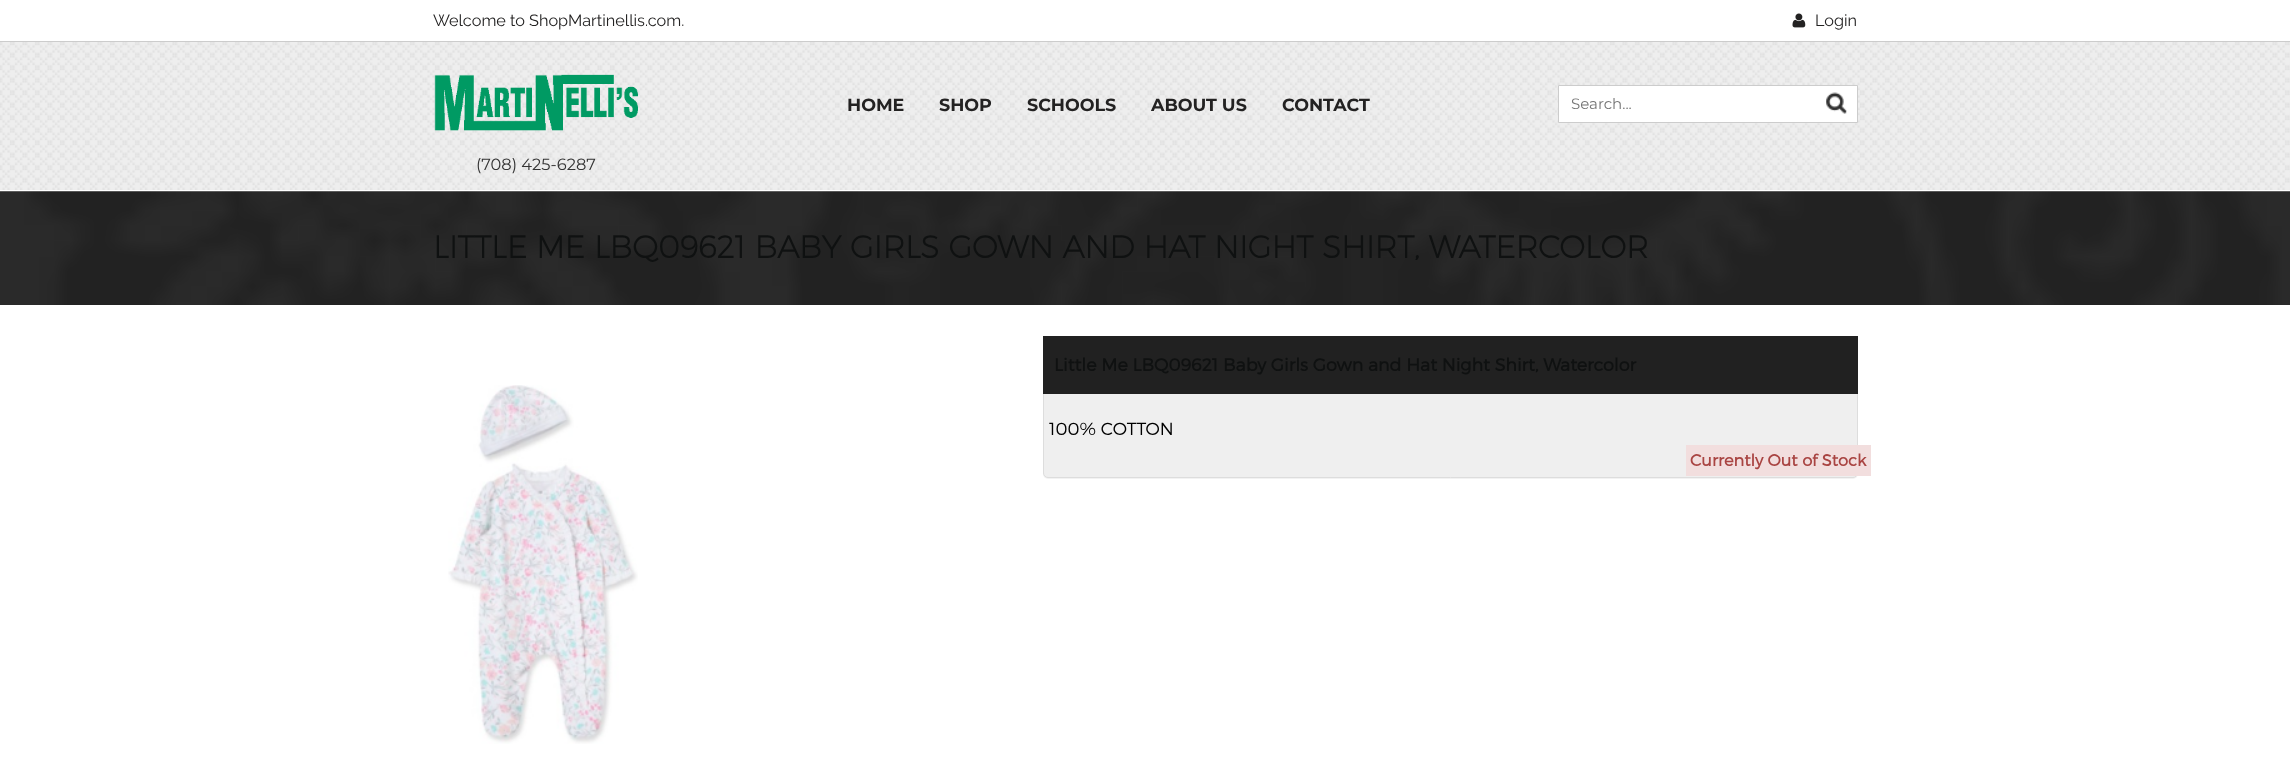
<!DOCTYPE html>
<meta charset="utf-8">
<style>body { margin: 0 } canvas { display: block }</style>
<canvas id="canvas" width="2290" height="764"></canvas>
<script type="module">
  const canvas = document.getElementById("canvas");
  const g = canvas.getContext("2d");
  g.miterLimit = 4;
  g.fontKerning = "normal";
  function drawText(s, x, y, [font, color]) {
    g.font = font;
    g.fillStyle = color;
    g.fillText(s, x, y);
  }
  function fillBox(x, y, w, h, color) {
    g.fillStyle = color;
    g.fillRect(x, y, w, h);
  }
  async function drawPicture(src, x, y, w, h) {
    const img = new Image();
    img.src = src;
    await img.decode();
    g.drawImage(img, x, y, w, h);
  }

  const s1 = ["16.25px Raleway", "#232222"];
  const s2 = ["bold 17.5px Montserrat", "#232222"];
  const s3 = ["15px Montserrat", "#757575"];
  const s4 = ["16.25px Montserrat", "#333333"];
  const s5 = ["bold 31.25px 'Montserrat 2'", "#0F1111"];
  const s6 = ["bold 17.5px 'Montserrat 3'", "#0F1111"];
  const s7 = ["300 17.5px Montserrat", "#000000"];
  const s8 = ["bold 16.25px 'Montserrat 3'", "#A94442"];

  fillBox(0, 0, 2290, 764, "#FFFFFF");
  drawText("Welcome to ShopMartinellis.com.", 433, 26, s1);
  await drawPicture("pic1.png", 1792, 13, 14, 15);
  drawText("Login", 1815, 26, s1);
  await drawPicture("pic2.png", 0, 42, 2290, 150);
  fillBox(0, 41, 2290, 1, "#CCCCCC");
  fillBox(0, 190, 2290, 1, "#FFFFFF");
  drawText("HOME", 847, 111, s2);
  drawText("SHOP", 939, 111, s2);
  drawText("SCHOOLS", 1027, 111, s2);
  drawText("ABOUT US", 1151, 111, s2);
  drawText("CONTACT", 1282, 111, s2);
  g.fillStyle = "#FFFFFF";
  g.beginPath();
  g.rect(1558.5, 85.5, 299, 37);
  g.fill();
  g.strokeStyle = "#CCCCCC";
  g.stroke();
  drawText("Search...", 1571, 109, s3);
  await drawPicture("pic3.png", 1826, 92, 21, 22);
  await drawPicture("pic4.png", 434, 74, 204, 57);
  drawText("(708) 425-6287", 476, 170, s4);
  await drawPicture("pic5.png", 0, 191, 2290, 114);
  drawText("LITTLE ME LBQ09621 BABY GIRLS GOWN AND HAT NIGHT SHIRT, WATERCOLOR", 433, 258, s5);
  await drawPicture("pic6.png", 448, 385, 190, 359);
  g.fillStyle = "rgba(0, 0, 0, 0.05)";
  g.filter = "blur(0.5px)";
  g.beginPath();
  g.roundRect(1043, 369, 815, 110, 5);
  g.fill();
  g.filter = "none";
  g.fillStyle = "#EFEFEF";
  g.beginPath();
  g.roundRect(1043.5, 368.5, 814, 109, 4.5);
  g.fill();
  g.strokeStyle = "#DDDDDD";
  g.stroke();
  fillBox(1043, 336, 815, 58, "#212121");
  drawText("Little Me LBQ09621 Baby Girls Gown and Hat Night Shirt, Watercolor", 1054, 371, s6);
  drawText("100% COTTON", 1049, 435, s7);
  fillBox(1686, 445, 185, 31, "#F2DEDE");
  drawText("Currently Out of Stock", 1690, 466, s8);
</script>
